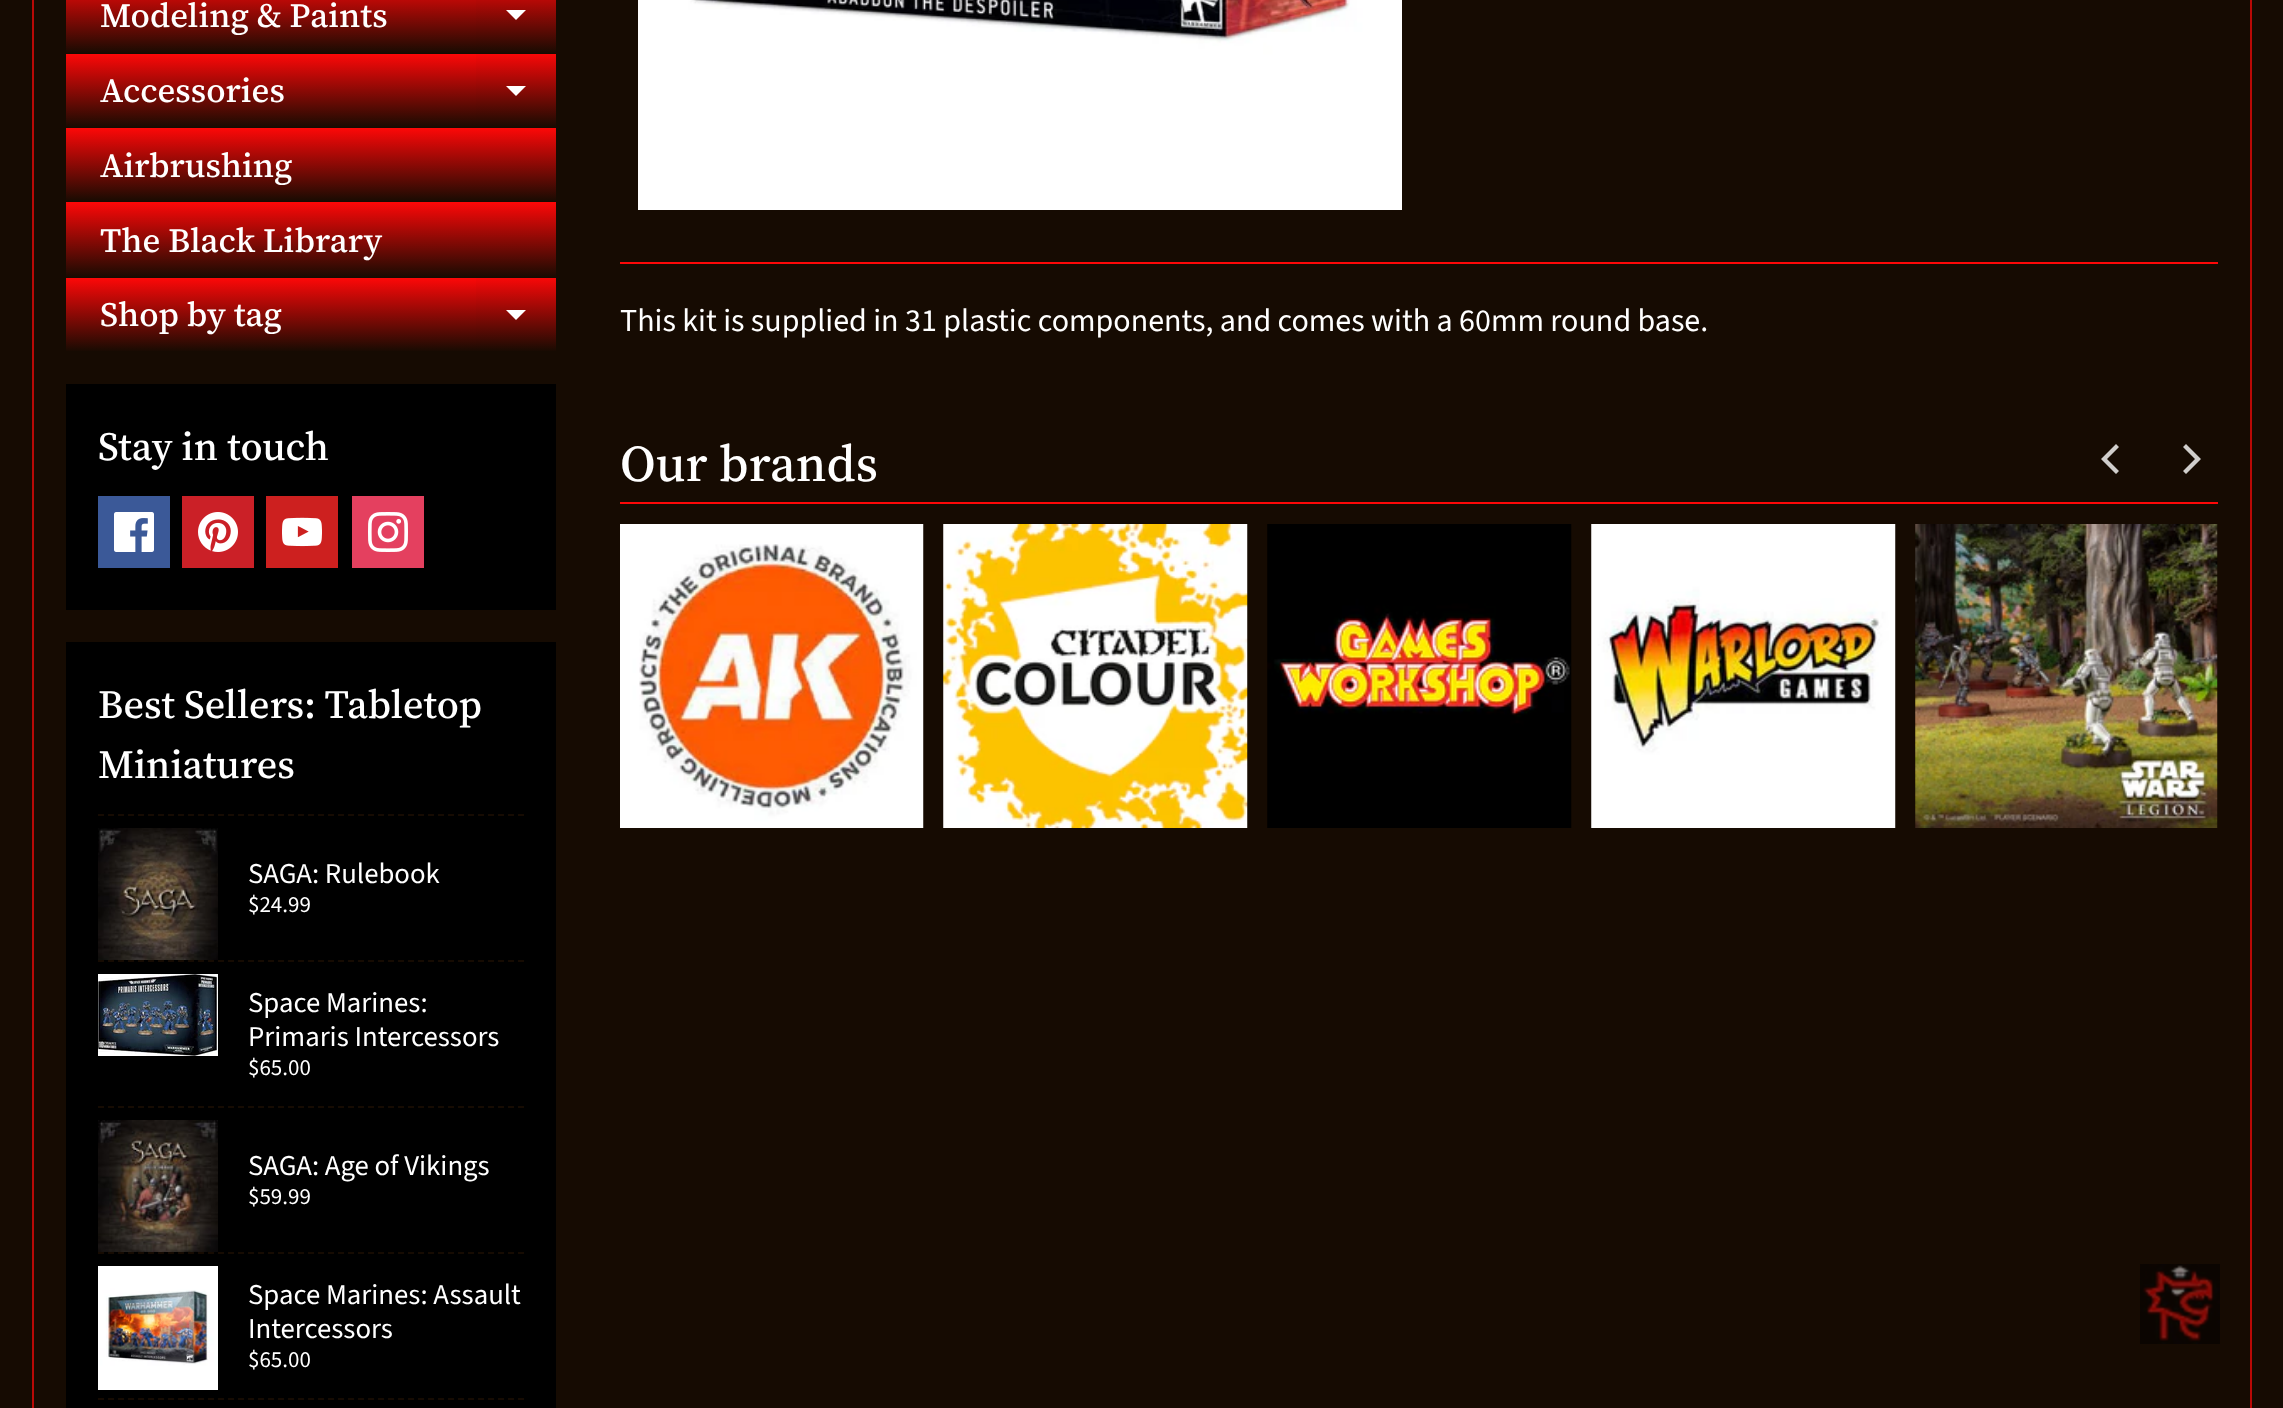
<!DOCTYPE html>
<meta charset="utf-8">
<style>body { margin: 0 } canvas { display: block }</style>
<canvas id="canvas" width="2283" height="1408"></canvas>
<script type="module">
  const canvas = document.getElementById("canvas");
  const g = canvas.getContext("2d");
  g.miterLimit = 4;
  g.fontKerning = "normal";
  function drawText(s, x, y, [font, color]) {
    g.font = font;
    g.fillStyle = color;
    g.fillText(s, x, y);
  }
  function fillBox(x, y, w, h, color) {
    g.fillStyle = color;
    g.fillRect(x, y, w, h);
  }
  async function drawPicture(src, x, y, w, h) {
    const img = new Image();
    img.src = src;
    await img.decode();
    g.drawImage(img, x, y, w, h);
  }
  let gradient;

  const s1 = ["500 34px 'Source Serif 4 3'", "#FFFFFF"];
  const s2 = ["500 40px 'Source Serif 4'", "#FFFFFF"];
  const s3 = ["28.75px Source Sans Pro", "#FFFFFF"];
  const s4 = ["23px Source Sans Pro", "#FFFFFF"];
  const s5 = ["32px Source Sans Pro", "#FFFFFF"];
  const s6 = ["500 51.25px 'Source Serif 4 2'", "#FFFFFF"];

  fillBox(0, 0, 2283, 1408, "#160B02");
  g.strokeStyle = "#B80906";
  g.lineWidth = 2;
  g.strokeRect(33, -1, 2218, 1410);
  gradient = g.createLinearGradient(311, -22, 311, 54);
  gradient.addColorStop(0, "#FD0808");
  gradient.addColorStop(1, "#160B02");
  g.fillStyle = gradient;
  g.fillRect(66, 0, 410, 53);
  gradient = g.createLinearGradient(311, -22, 311, 54);
  gradient.addColorStop(0, "#F80808");
  gradient.addColorStop(1, "#160B02");
  g.fillStyle = gradient;
  g.fillRect(476, 0, 80, 53);
  drawText("Modeling & Paints", 100, 27, s1);
  g.beginPath();
  g.moveTo(506, 10);
  g.lineTo(526, 10);
  g.lineTo(516, 20);
  g.closePath();
  g.fill();
  gradient = g.createLinearGradient(311, 54, 311, 128);
  gradient.addColorStop(0, "#FD0808");
  gradient.addColorStop(1, "#160B02");
  g.fillStyle = gradient;
  g.fillRect(66, 54, 410, 73);
  gradient = g.createLinearGradient(311, 54, 311, 128);
  gradient.addColorStop(0, "#F80808");
  gradient.addColorStop(1, "#160B02");
  g.fillStyle = gradient;
  g.fillRect(476, 54, 80, 73);
  drawText("Accessories", 100, 102, s1);
  g.beginPath();
  g.moveTo(506, 86);
  g.lineTo(526, 86);
  g.lineTo(516, 96);
  g.closePath();
  g.fill();
  gradient = g.createLinearGradient(311, 128, 311, 202);
  gradient.addColorStop(0, "#FD0808");
  gradient.addColorStop(1, "#160B02");
  g.fillStyle = gradient;
  g.fillRect(66, 128, 490, 73);
  drawText("Airbrushing", 100, 177, s1);
  gradient = g.createLinearGradient(311, 202, 311, 278);
  gradient.addColorStop(0, "#FD0808");
  gradient.addColorStop(1, "#160B02");
  g.fillStyle = gradient;
  g.fillRect(66, 202, 490, 75);
  drawText("The Black Library", 100, 252, s1);
  gradient = g.createLinearGradient(311, 278, 311, 352);
  gradient.addColorStop(0, "#FD0808");
  gradient.addColorStop(1, "#160B02");
  g.fillStyle = gradient;
  g.fillRect(66, 278, 410, 73);
  gradient = g.createLinearGradient(311, 278, 311, 352);
  gradient.addColorStop(0, "#F80808");
  gradient.addColorStop(1, "#160B02");
  g.fillStyle = gradient;
  g.fillRect(476, 278, 80, 73);
  drawText("Shop by tag", 100, 326, s1);
  g.beginPath();
  g.moveTo(506, 310);
  g.lineTo(526, 310);
  g.lineTo(516, 320);
  g.closePath();
  g.fill();
  fillBox(66, 384, 490, 226, "#000000");
  drawText("Stay in touch", 98, 460, s2);
  fillBox(98, 496, 72, 72, "#3B5998");
  await drawPicture("pic1.png", 114, 512, 40, 40);
  fillBox(182, 496, 72, 72, "#CB2027");
  await drawPicture("pic2.png", 198, 512, 40, 40);
  fillBox(266, 496, 72, 72, "#CD201F");
  await drawPicture("pic3.png", 282, 517, 40, 30);
  fillBox(352, 496, 72, 72, "#E4405F");
  await drawPicture("pic4.png", 368, 512, 40, 40);
  fillBox(66, 642, 490, 766, "#000000");
  drawText("Best Sellers: Tabletop", 98, 718, s2);
  drawText("Miniatures", 98, 778, s2);
  g.beginPath();
  g.moveTo(98, 815);
  g.lineTo(524, 815);
  g.strokeStyle = "#160B02";
  g.setLineDash([6, 4]);
  g.stroke();
  await drawPicture("pic5.png", 98, 828, 120, 132);
  drawText("SAGA: Rulebook", 248, 883, s3);
  drawText("$24.99", 248, 912, s4);
  g.beginPath();
  g.moveTo(98, 961);
  g.lineTo(524, 961);
  g.stroke();
  await drawPicture("pic6.png", 98, 974, 120, 82);
  drawText("Space Marines:", 248, 1012, s3);
  drawText("Primaris Intercessors", 248, 1046, s3);
  drawText("$65.00", 248, 1075, s4);
  g.beginPath();
  g.moveTo(98, 1107);
  g.lineTo(524, 1107);
  g.stroke();
  await drawPicture("pic7.png", 98, 1120, 120, 132);
  drawText("SAGA: Age of Vikings", 248, 1175, s3);
  drawText("$59.99", 248, 1204, s4);
  g.beginPath();
  g.moveTo(98, 1253);
  g.lineTo(524, 1253);
  g.stroke();
  await drawPicture("pic8.png", 98, 1266, 120, 124);
  drawText("Space Marines: Assault", 248, 1304, s3);
  drawText("Intercessors", 248, 1338, s3);
  drawText("$65.00", 248, 1367, s4);
  g.beginPath();
  g.moveTo(98, 1399);
  g.lineTo(524, 1399);
  g.stroke();
  await drawPicture("pic9.png", 638, 0, 764, 210);
  fillBox(620, 262, 1598, 2, "#FD0808");
  drawText("This kit is supplied in 31 plastic components, and comes with a 60mm round base.", 620, 331, s5);
  fillBox(620, 502, 1598, 2, "#FD0808");
  drawText("Our brands", 620, 481, s6);
  g.fillStyle = "#D0CECC";
  g.beginPath();
  g.moveTo(2101, 459);
  g.lineTo(2116, 474);
  g.lineTo(2119, 471);
  g.lineTo(2107, 459);
  g.lineTo(2119, 447);
  g.lineTo(2116, 444);
  g.closePath();
  g.fill();
  g.beginPath();
  g.moveTo(2201, 459);
  g.lineTo(2186, 444);
  g.lineTo(2183, 447);
  g.lineTo(2195, 459);
  g.lineTo(2183, 471);
  g.lineTo(2186, 474);
  g.closePath();
  g.fill();
  await drawPicture("pic10.png", 620, 524, 304, 304);
  await drawPicture("pic11.png", 943, 524, 305, 304);
  await drawPicture("pic12.png", 1267, 524, 305, 304);
  await drawPicture("pic13.png", 1591, 524, 305, 304);
  await drawPicture("pic14.png", 1915, 524, 303, 304);
  await drawPicture("pic15.png", 2140, 1264, 80, 80);
</script>
